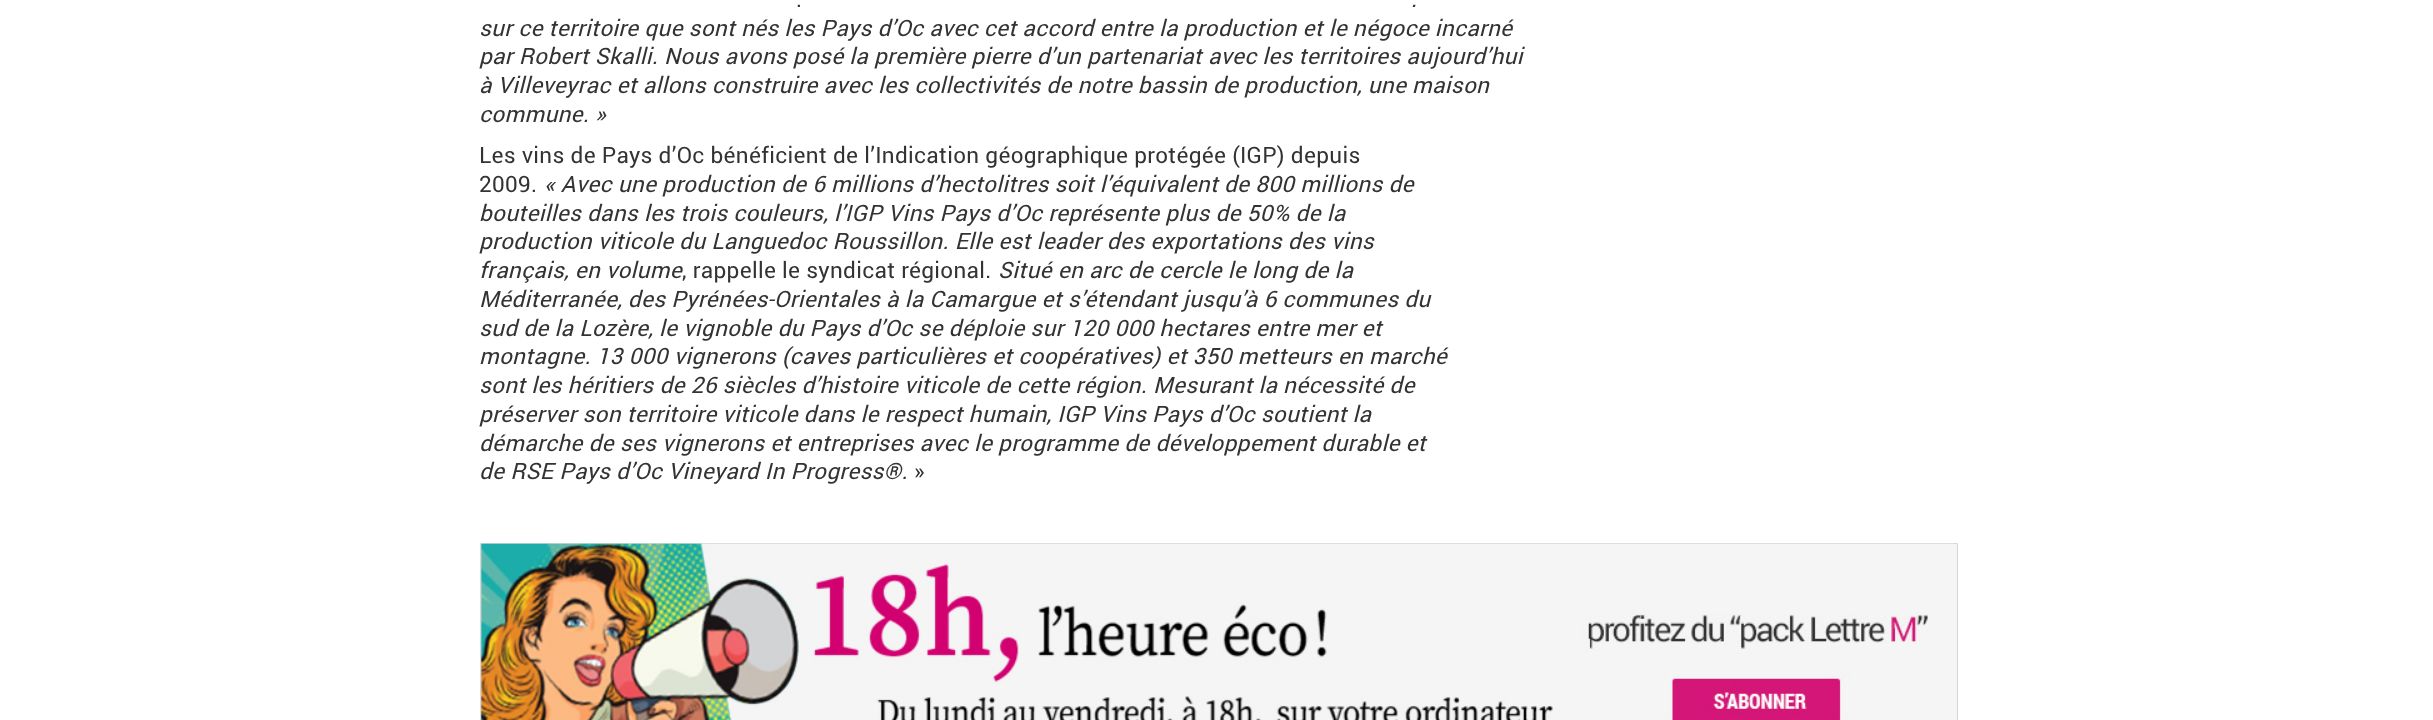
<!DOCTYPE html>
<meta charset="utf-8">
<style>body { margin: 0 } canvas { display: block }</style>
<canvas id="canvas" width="2433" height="720"></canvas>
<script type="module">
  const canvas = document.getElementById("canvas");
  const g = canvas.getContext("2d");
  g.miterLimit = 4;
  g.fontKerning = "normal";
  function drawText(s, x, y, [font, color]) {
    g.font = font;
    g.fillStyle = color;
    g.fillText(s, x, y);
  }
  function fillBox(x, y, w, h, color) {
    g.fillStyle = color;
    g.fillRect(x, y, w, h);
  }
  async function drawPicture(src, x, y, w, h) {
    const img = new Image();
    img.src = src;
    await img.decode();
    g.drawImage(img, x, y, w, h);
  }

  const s1 = ["22.5px Roboto", "#333333"];
  const s2 = ["italic 22.5px Roboto", "#333333"];

  fillBox(0, 0, 2433, 720, "#FFFFFF");
  g.letterSpacing = "0.33px";
  drawText(".", 796, 7, s1);
  drawText(".", 1411, 7, s2);
  drawText("sur ce territoire que sont nés les Pays d’Oc avec cet accord entre la production et le négoce incarné", 479, 36, s2);
  drawText("par Robert Skalli. Nous avons posé la première pierre d’un partenariat avec les territoires aujourd’hui", 479, 64, s2);
  drawText("à Villeveyrac et allons construire avec les collectivités de notre bassin de production, une maison", 479, 93, s2);
  drawText("commune. »", 479, 122, s2);
  drawText("Les vins de Pays d’Oc bénéficient de l’Indication géographique protégée (IGP) depuis", 479, 163, s1);
  drawText("2009.", 479, 192, s1);
  drawText("« Avec une production de 6 millions d’hectolitres soit l’équivalent de 800 millions de", 544, 192, s2);
  drawText("bouteilles dans les trois couleurs, l’IGP Vins Pays d’Oc représente plus de 50% de la", 479, 221, s2);
  drawText("production viticole du Languedoc Roussillon. Elle est leader des exportations des vins", 479, 249, s2);
  drawText("français, en volume", 479, 278, s2);
  drawText(", rappelle le syndicat régional.", 682, 278, s1);
  drawText("Situé en arc de cercle le long de la", 998, 278, s2);
  drawText("Méditerranée, des Pyrénées-Orientales à la Camargue et s’étendant jusqu’à 6 communes du", 479, 307, s2);
  drawText("sud de la Lozère, le vignoble du Pays d’Oc se déploie sur 120 000 hectares entre mer et", 479, 336, s2);
  drawText("montagne. 13 000 vignerons (caves particulières et coopératives) et 350 metteurs en marché", 479, 364, s2);
  drawText("sont les héritiers de 26 siècles d’histoire viticole de cette région. Mesurant la nécessité de", 479, 393, s2);
  drawText("préserver son territoire viticole dans le respect humain, IGP Vins Pays d’Oc soutient la", 479, 422, s2);
  drawText("démarche de ses vignerons et entreprises avec le programme de développement durable et", 479, 451, s2);
  drawText("de RSE Pays d’Oc Vineyard In Progress®.", 479, 479, s2);
  drawText("»", 914, 479, s1);
  g.fillStyle = "#F5F5F5";
  g.beginPath();
  g.rect(480.5, 543.5, 1477, 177);
  g.fill();
  g.strokeStyle = "#D6D6D6";
  g.stroke();
  await drawPicture("pic1.png", 481, 543, 1473, 177);
</script>
